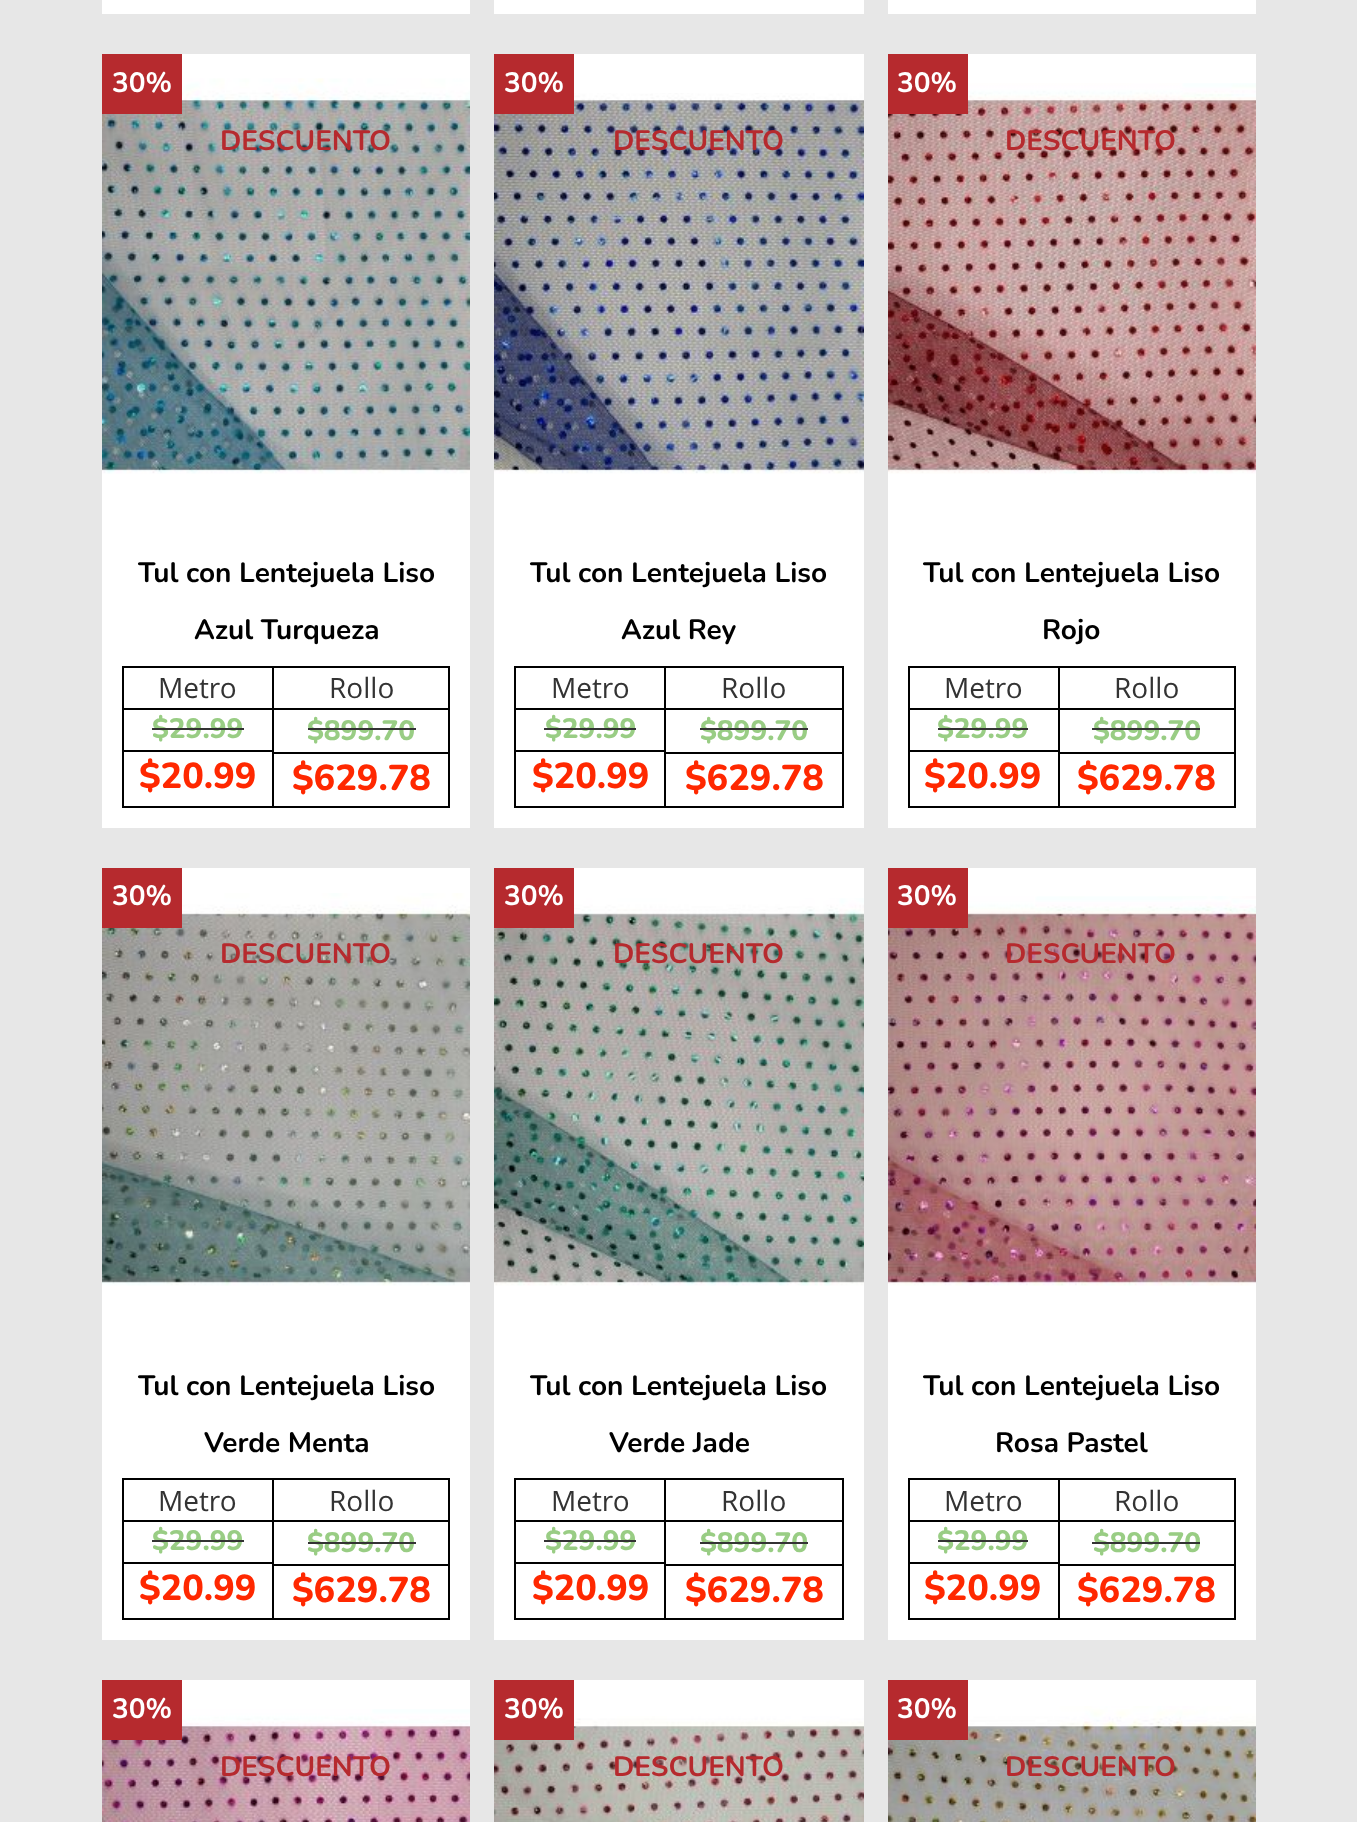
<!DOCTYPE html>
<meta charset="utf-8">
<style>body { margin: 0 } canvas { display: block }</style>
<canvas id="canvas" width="1357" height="1822"></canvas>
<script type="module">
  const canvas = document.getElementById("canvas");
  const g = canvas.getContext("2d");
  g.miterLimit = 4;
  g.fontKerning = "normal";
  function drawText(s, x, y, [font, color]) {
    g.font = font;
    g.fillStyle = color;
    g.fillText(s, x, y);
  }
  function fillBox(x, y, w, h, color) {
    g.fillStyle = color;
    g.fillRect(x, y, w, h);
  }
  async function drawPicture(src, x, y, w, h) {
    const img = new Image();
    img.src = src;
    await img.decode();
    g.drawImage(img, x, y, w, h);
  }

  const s1 = ["bold 28px Nunito", "#FFFFFF"];
  const s2 = ["bold 28px Nunito", "#B62A2E"];
  const s3 = ["bold 28px Nunito", "#000000"];
  const s4 = ["28px Open Sans", "#333333"];
  const s5 = ["800 28px Nunito", "#99CD84"];
  const s6 = ["800 36px Nunito", "#FF2800"];

  fillBox(0, 0, 1357, 1822, "#E7E7E7");
  fillBox(102, 0, 368, 14, "#FFFFFF");
  fillBox(494, 0, 370, 14, "#FFFFFF");
  fillBox(888, 0, 368, 14, "#FFFFFF");
  fillBox(102, 54, 368, 774, "#FFFFFF");
  await drawPicture("pic1.png", 102, 78, 368, 396);
  fillBox(102, 54, 80, 60, "#B62A2E");
  drawText("30%", 112, 92, s1);
  drawText("DESCUENTO", 220, 150, s2);
  drawText("Tul con Lentejuela Liso", 138, 582, s3);
  drawText("Azul Turqueza", 194, 639, s3);
  fillBox(272, 666, 178, 2, "#000000");
  fillBox(272, 708, 178, 2, "#000000");
  fillBox(448, 708, 2, 100, "#000000");
  fillBox(272, 806, 178, 2, "#000000");
  fillBox(272, 708, 2, 100, "#000000");
  fillBox(122, 708, 152, 2, "#000000");
  fillBox(272, 666, 2, 44, "#000000");
  fillBox(122, 666, 152, 2, "#000000");
  fillBox(122, 806, 152, 2, "#000000");
  fillBox(122, 708, 2, 100, "#000000");
  fillBox(122, 666, 2, 44, "#000000");
  drawText("Metro", 158, 698, s4);
  fillBox(448, 666, 2, 44, "#000000");
  drawText("Rollo", 329, 698, s4);
  fillBox(124, 750, 148, 2, "#000000");
  drawText("$29.99", 152, 738, s5);
  fillBox(152, 728, 92, 2, "#333333");
  drawText("$20.99", 139, 788, s6);
  fillBox(274, 752, 174, 2, "#000000");
  drawText("$899.70", 307, 740, s5);
  fillBox(308, 728, 108, 2, "#333333");
  drawText("$629.78", 292, 790, s6);
  fillBox(494, 54, 370, 774, "#FFFFFF");
  await drawPicture("pic2.png", 494, 93, 370, 381);
  fillBox(494, 54, 80, 60, "#B62A2E");
  drawText("30%", 504, 92, s1);
  drawText("DESCUENTO", 613, 150, s2);
  drawText("Tul con Lentejuela Liso", 530, 582, s3);
  drawText("Azul Rey", 621, 639, s3);
  fillBox(664, 666, 180, 2, "#000000");
  fillBox(664, 708, 180, 2, "#000000");
  fillBox(842, 708, 2, 100, "#000000");
  fillBox(664, 806, 180, 2, "#000000");
  fillBox(664, 708, 2, 100, "#000000");
  fillBox(514, 708, 152, 2, "#000000");
  fillBox(664, 666, 2, 44, "#000000");
  fillBox(514, 666, 152, 2, "#000000");
  fillBox(514, 806, 152, 2, "#000000");
  fillBox(514, 708, 2, 100, "#000000");
  fillBox(514, 666, 2, 44, "#000000");
  drawText("Metro", 551, 698, s4);
  fillBox(842, 666, 2, 44, "#000000");
  drawText("Rollo", 721, 698, s4);
  fillBox(516, 750, 148, 2, "#000000");
  drawText("$29.99", 545, 738, s5);
  fillBox(544, 728, 92, 2, "#333333");
  drawText("$20.99", 532, 788, s6);
  fillBox(666, 752, 176, 2, "#000000");
  drawText("$899.70", 700, 740, s5);
  fillBox(700, 728, 108, 2, "#333333");
  drawText("$629.78", 685, 790, s6);
  fillBox(888, 54, 368, 774, "#FFFFFF");
  await drawPicture("pic3.png", 888, 83, 368, 391);
  fillBox(888, 54, 80, 60, "#B62A2E");
  drawText("30%", 897, 92, s1);
  drawText("DESCUENTO", 1005, 150, s2);
  drawText("Tul con Lentejuela Liso", 923, 582, s3);
  drawText("Rojo", 1042, 639, s3);
  fillBox(1058, 666, 178, 2, "#000000");
  fillBox(1058, 708, 178, 2, "#000000");
  fillBox(1234, 708, 2, 100, "#000000");
  fillBox(1058, 806, 178, 2, "#000000");
  fillBox(1058, 708, 2, 100, "#000000");
  fillBox(908, 708, 152, 2, "#000000");
  fillBox(1058, 666, 2, 44, "#000000");
  fillBox(908, 666, 152, 2, "#000000");
  fillBox(908, 806, 152, 2, "#000000");
  fillBox(908, 708, 2, 100, "#000000");
  fillBox(908, 666, 2, 44, "#000000");
  drawText("Metro", 944, 698, s4);
  fillBox(1234, 666, 2, 44, "#000000");
  drawText("Rollo", 1114, 698, s4);
  fillBox(910, 750, 148, 2, "#000000");
  drawText("$29.99", 937, 738, s5);
  fillBox(938, 728, 90, 2, "#333333");
  drawText("$20.99", 924, 788, s6);
  fillBox(1060, 752, 174, 2, "#000000");
  drawText("$899.70", 1093, 740, s5);
  fillBox(1092, 728, 108, 2, "#333333");
  drawText("$629.78", 1077, 790, s6);
  fillBox(102, 868, 368, 772, "#FFFFFF");
  await drawPicture("pic4.png", 102, 893, 368, 393);
  fillBox(102, 868, 80, 60, "#B62A2E");
  drawText("30%", 112, 905, s1);
  drawText("DESCUENTO", 220, 963, s2);
  drawText("Tul con Lentejuela Liso", 138, 1395, s3);
  drawText("Verde Menta", 204, 1452, s3);
  fillBox(272, 1478, 178, 2, "#000000");
  fillBox(272, 1520, 178, 2, "#000000");
  fillBox(448, 1520, 2, 100, "#000000");
  fillBox(272, 1618, 178, 2, "#000000");
  fillBox(272, 1520, 2, 100, "#000000");
  fillBox(122, 1520, 152, 2, "#000000");
  fillBox(272, 1478, 2, 44, "#000000");
  fillBox(122, 1478, 152, 2, "#000000");
  fillBox(122, 1618, 152, 2, "#000000");
  fillBox(122, 1520, 2, 100, "#000000");
  fillBox(122, 1478, 2, 44, "#000000");
  drawText("Metro", 158, 1511, s4);
  fillBox(448, 1478, 2, 44, "#000000");
  drawText("Rollo", 329, 1511, s4);
  fillBox(124, 1562, 148, 2, "#000000");
  drawText("$29.99", 152, 1550, s5);
  fillBox(152, 1540, 92, 2, "#333333");
  drawText("$20.99", 139, 1600, s6);
  fillBox(274, 1564, 174, 2, "#000000");
  drawText("$899.70", 307, 1552, s5);
  fillBox(308, 1542, 108, 2, "#333333");
  drawText("$629.78", 292, 1602, s6);
  fillBox(494, 868, 370, 772, "#FFFFFF");
  await drawPicture("pic5.png", 494, 898, 370, 388);
  fillBox(494, 868, 80, 60, "#B62A2E");
  drawText("30%", 504, 905, s1);
  drawText("DESCUENTO", 613, 963, s2);
  drawText("Tul con Lentejuela Liso", 530, 1395, s3);
  drawText("Verde Jade", 609, 1452, s3);
  fillBox(664, 1478, 180, 2, "#000000");
  fillBox(664, 1520, 180, 2, "#000000");
  fillBox(842, 1520, 2, 100, "#000000");
  fillBox(664, 1618, 180, 2, "#000000");
  fillBox(664, 1520, 2, 100, "#000000");
  fillBox(514, 1520, 152, 2, "#000000");
  fillBox(664, 1478, 2, 44, "#000000");
  fillBox(514, 1478, 152, 2, "#000000");
  fillBox(514, 1618, 152, 2, "#000000");
  fillBox(514, 1520, 2, 100, "#000000");
  fillBox(514, 1478, 2, 44, "#000000");
  drawText("Metro", 551, 1511, s4);
  fillBox(842, 1478, 2, 44, "#000000");
  drawText("Rollo", 721, 1511, s4);
  fillBox(516, 1562, 148, 2, "#000000");
  drawText("$29.99", 545, 1550, s5);
  fillBox(544, 1540, 92, 2, "#333333");
  drawText("$20.99", 532, 1600, s6);
  fillBox(666, 1564, 176, 2, "#000000");
  drawText("$899.70", 700, 1552, s5);
  fillBox(700, 1542, 108, 2, "#333333");
  drawText("$629.78", 685, 1602, s6);
  fillBox(888, 868, 368, 772, "#FFFFFF");
  await drawPicture("pic6.png", 888, 896, 368, 390);
  fillBox(888, 868, 80, 60, "#B62A2E");
  drawText("30%", 897, 905, s1);
  drawText("DESCUENTO", 1005, 963, s2);
  drawText("Tul con Lentejuela Liso", 923, 1395, s3);
  drawText("Rosa Pastel", 995, 1452, s3);
  fillBox(1058, 1478, 178, 2, "#000000");
  fillBox(1058, 1520, 178, 2, "#000000");
  fillBox(1234, 1520, 2, 100, "#000000");
  fillBox(1058, 1618, 178, 2, "#000000");
  fillBox(1058, 1520, 2, 100, "#000000");
  fillBox(908, 1520, 152, 2, "#000000");
  fillBox(1058, 1478, 2, 44, "#000000");
  fillBox(908, 1478, 152, 2, "#000000");
  fillBox(908, 1618, 152, 2, "#000000");
  fillBox(908, 1520, 2, 100, "#000000");
  fillBox(908, 1478, 2, 44, "#000000");
  drawText("Metro", 944, 1511, s4);
  fillBox(1234, 1478, 2, 44, "#000000");
  drawText("Rollo", 1114, 1511, s4);
  fillBox(910, 1562, 148, 2, "#000000");
  drawText("$29.99", 937, 1550, s5);
  fillBox(938, 1540, 90, 2, "#333333");
  drawText("$20.99", 924, 1600, s6);
  fillBox(1060, 1564, 174, 2, "#000000");
  drawText("$899.70", 1093, 1552, s5);
  fillBox(1092, 1542, 108, 2, "#333333");
  drawText("$629.78", 1077, 1602, s6);
  fillBox(182, 1680, 288, 29, "#FFFFFF");
  await drawPicture("pic7.png", 102, 1709, 368, 113);
  fillBox(102, 1680, 80, 60, "#B62A2E");
  drawText("30%", 112, 1718, s1);
  drawText("DESCUENTO", 220, 1776, s2);
  fillBox(574, 1680, 290, 36, "#FFFFFF");
  await drawPicture("pic8.png", 494, 1716, 370, 106);
  fillBox(494, 1680, 80, 60, "#B62A2E");
  drawText("30%", 504, 1718, s1);
  drawText("DESCUENTO", 613, 1776, s2);
  fillBox(968, 1680, 288, 26, "#FFFFFF");
  await drawPicture("pic9.png", 888, 1706, 368, 116);
  fillBox(888, 1680, 80, 60, "#B62A2E");
  drawText("30%", 897, 1718, s1);
  drawText("DESCUENTO", 1005, 1776, s2);
</script>
